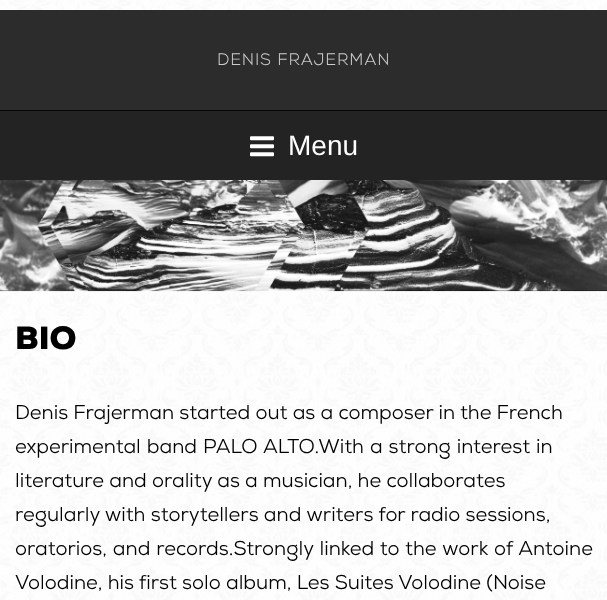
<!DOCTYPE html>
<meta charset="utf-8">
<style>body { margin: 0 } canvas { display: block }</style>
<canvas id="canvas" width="607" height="600"></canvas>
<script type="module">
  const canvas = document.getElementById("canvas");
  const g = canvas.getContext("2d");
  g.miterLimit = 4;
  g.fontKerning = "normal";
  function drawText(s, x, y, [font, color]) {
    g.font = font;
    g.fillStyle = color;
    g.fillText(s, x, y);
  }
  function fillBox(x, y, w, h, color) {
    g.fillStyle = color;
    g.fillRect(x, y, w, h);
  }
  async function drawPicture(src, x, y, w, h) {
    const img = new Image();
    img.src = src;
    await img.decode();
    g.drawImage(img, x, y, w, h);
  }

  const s1 = ["bold 16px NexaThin", "#CCCCCC"];
  const s2 = ["28px Liberation Sans", "#FFFFFF"];
  const s3 = ["900 32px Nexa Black", "#000000"];
  const s4 = ["20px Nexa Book", "#000000"];

  fillBox(0, 0, 607, 600, "#FFFFFF");
  await drawPicture("pic1.png", 0, 0, 607, 600);
  fillBox(0, 10, 607, 100, "#2D2C2C");
  g.letterSpacing = "1.25px";
  drawText("DENIS FRAJERMAN", 217, 65, s1);
  fillBox(0, 111, 607, 69, "#242323");
  fillBox(0, 110, 607, 1, "#070707");
  await drawPicture("pic2.png", 250, 136, 24, 21);
  g.letterSpacing = "0px";
  drawText("Menu", 288, 155, s2);
  await drawPicture("pic3.png", 0, 180, 607, 112);
  drawText("BIO", 15, 349, s3);
  drawText("Denis Frajerman started out as a composer in the French", 15, 419, s4);
  g.wordSpacing = "0.75px";
  drawText("experimental band PALO ALTO.With a strong interest in", 15, 453, s4);
  g.wordSpacing = "0px";
  drawText("literature and orality as a musician, he collaborates", 15, 487, s4);
  drawText("regularly with storytellers and writers for radio sessions,", 15, 521, s4);
  g.wordSpacing = "0.75px";
  drawText("oratorios, and records.Strongly linked to the work of Antoine", 15, 555, s4);
  g.wordSpacing = "0px";
  drawText("Volodine, his first solo album, Les Suites Volodine (Noise", 15, 589, s4);
</script>
